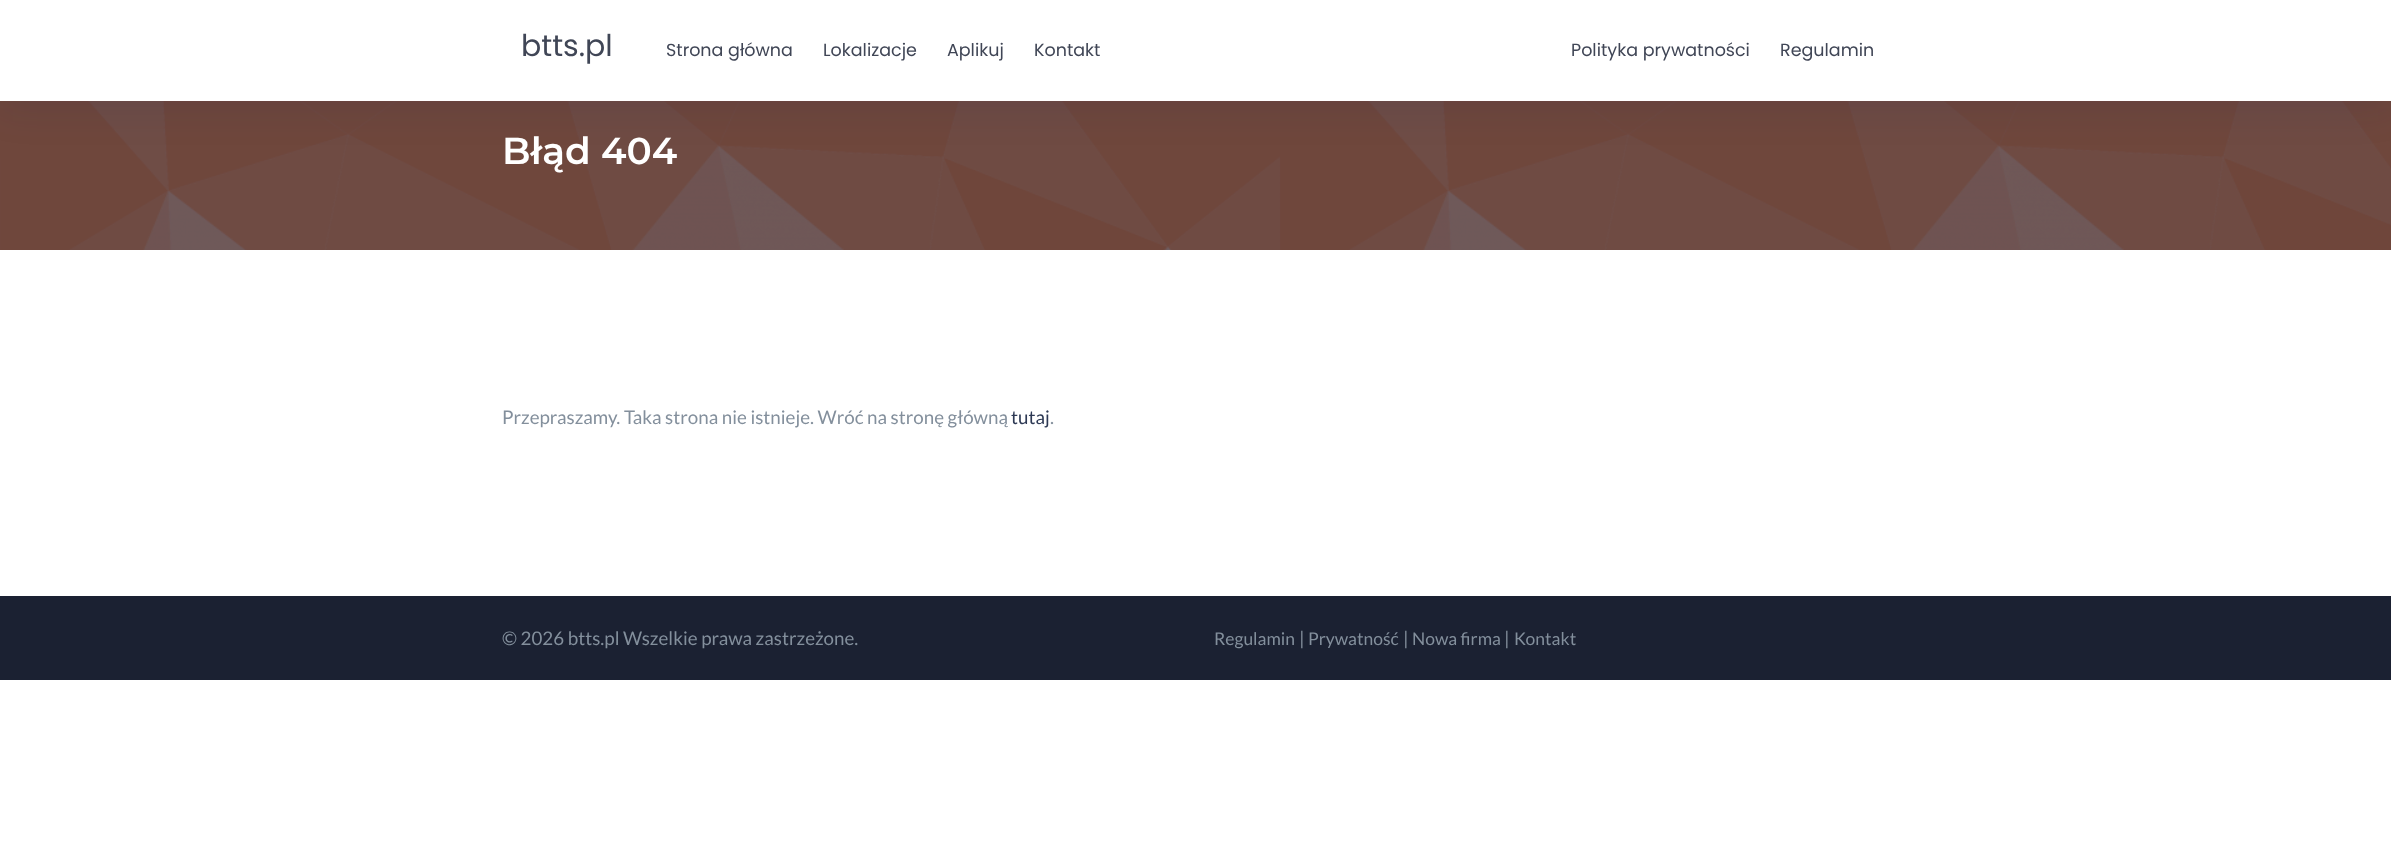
<!DOCTYPE html>
<meta charset="utf-8">
<style>body { margin: 0 } canvas { display: block }</style>
<canvas id="canvas" width="2391" height="851"></canvas>
<script type="module">
  const canvas = document.getElementById("canvas");
  const g = canvas.getContext("2d");
  g.miterLimit = 4;
  g.fontKerning = "normal";
  function drawText(s, x, y, [font, color]) {
    g.font = font;
    g.fillStyle = color;
    g.fillText(s, x, y);
  }
  function fillBox(x, y, w, h, color) {
    g.fillStyle = color;
    g.fillRect(x, y, w, h);
  }
  async function drawPicture(src, x, y, w, h) {
    const img = new Image();
    img.src = src;
    await img.decode();
    g.drawImage(img, x, y, w, h);
  }

  const s1 = ["30px Poppins", "#404656"];
  const s2 = ["17.5px Poppins", "#404656"];
  const s3 = ["600 37.5px Montserrat", "#FFFFFF"];
  const s4 = ["18.75px Lato", "#838F9C"];
  const s5 = ["18.75px Lato", "#2D3954"];
  const s6 = ["17.5px Lato", "#838F9C"];

  fillBox(0, 0, 2391, 851, "#FFFFFF");
  fillBox(0, 101, 2391, 149, "#6F798F");
  await drawPicture("pic1.png", 0, 101, 2391, 149);
  g.fillStyle = "rgba(0, 22, 84, 0.1)";
  g.filter = "blur(19px)";
  g.beginPath();
  g.rect(0, 6, 2391, 102);
  g.fill();
  g.filter = "none";
  fillBox(0, 0, 2391, 101, "#FFFFFF");
  drawText("btts.pl", 521, 56, s1);
  drawText("Strona główna", 666, 56, s2);
  drawText("Lokalizacje", 823, 56, s2);
  drawText("Aplikuj", 947, 56, s2);
  drawText("Kontakt", 1034, 56, s2);
  drawText("Polityka prywatności", 1571, 56, s2);
  drawText("Regulamin", 1780, 56, s2);
  drawText("Błąd 404", 502, 164, s3);
  drawText("Przepraszamy. Taka strona nie istnieje. Wróć na stronę główną", 502, 424, s4);
  drawText("tutaj", 1011, 424, s5);
  drawText(".", 1050, 424, s4);
  fillBox(0, 596, 2391, 84, "#1B2132");
  drawText("© 2026 btts.pl Wszelkie prawa zastrzeżone.", 502, 645, s4);
  drawText("Regulamin", 1214, 645, s6);
  drawText("|", 1299, 645, s4);
  drawText("Prywatność", 1308, 645, s6);
  drawText("|", 1403, 645, s4);
  drawText("Nowa firma", 1412, 645, s6);
  drawText("|", 1504, 645, s4);
  drawText("Kontakt", 1514, 645, s6);
</script>
